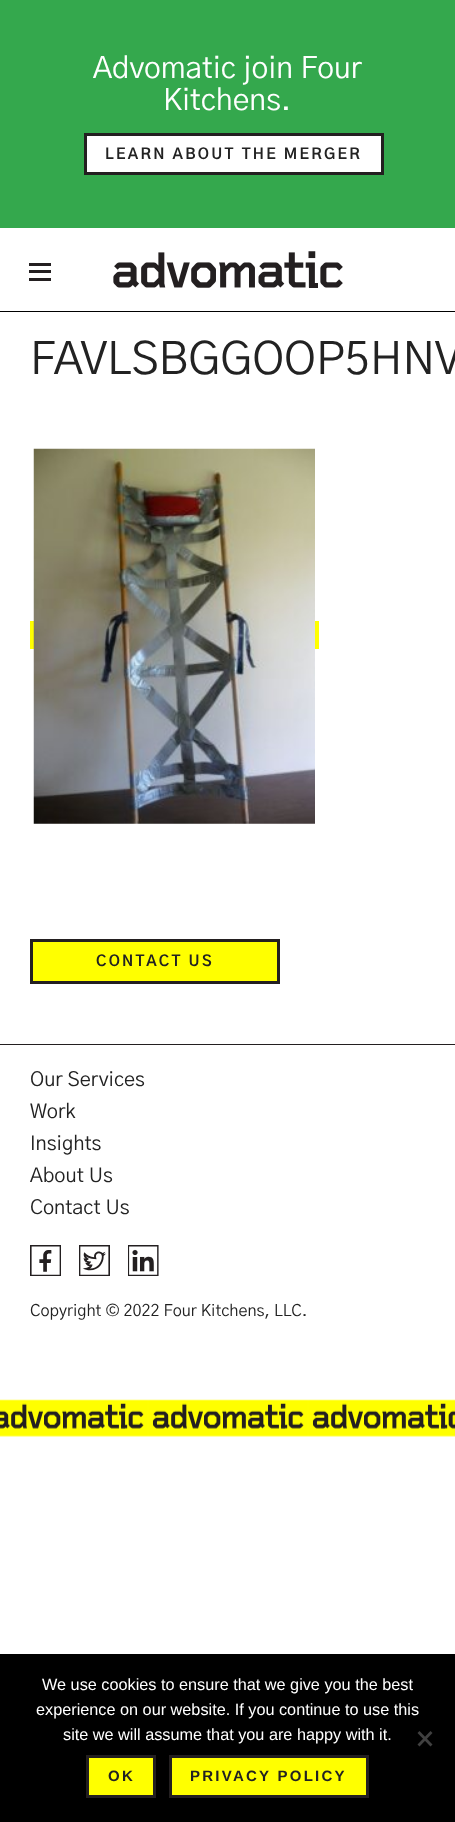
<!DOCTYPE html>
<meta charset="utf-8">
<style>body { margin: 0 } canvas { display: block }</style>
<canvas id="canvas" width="455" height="1822"></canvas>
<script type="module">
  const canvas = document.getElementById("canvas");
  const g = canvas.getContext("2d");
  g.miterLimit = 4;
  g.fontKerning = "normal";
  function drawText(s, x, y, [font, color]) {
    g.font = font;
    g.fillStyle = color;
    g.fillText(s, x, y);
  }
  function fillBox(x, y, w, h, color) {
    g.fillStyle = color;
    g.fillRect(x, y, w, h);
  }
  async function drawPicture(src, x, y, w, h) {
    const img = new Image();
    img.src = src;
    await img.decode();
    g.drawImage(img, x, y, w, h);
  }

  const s1 = ["30px 'Gothic A1'", "#FFFFFF"];
  const s2 = ["bold 15px 'Gothic A1'", "#222222"];
  const s3 = ["45px 'Gothic A1'", "#222222"];
  const s4 = ["20px 'Gothic A1'", "#222222"];
  const s5 = ["16.25px 'Gothic A1'", "#222222"];
  const s6 = ["16.25px Liberation Sans", "#FFFFFF"];
  const s7 = ["bold 15px Liberation Sans", "#222222"];

  fillBox(0, 0, 455, 1822, "#FFFFFF");
  fillBox(0, 0, 455, 228, "#34A84D");
  drawText("Advomatic join Four", 93, 78, s1);
  drawText("Kitchens.", 163, 110, s1);
  g.beginPath();
  g.rect(85.5, 134.5, 297, 39);
  g.fill();
  g.strokeStyle = "#231F20";
  g.lineWidth = 3;
  g.stroke();
  g.letterSpacing = "2.25px";
  drawText("LEARN ABOUT THE MERGER", 105, 159, s2);
  fillBox(0, 311, 455, 1, "#000000");
  fillBox(29, 278, 22, 3, "#231F20");
  fillBox(29, 270, 22, 3, "#231F20");
  fillBox(29, 263, 22, 3, "#231F20");
  await drawPicture("pic1.png", 113, 251, 230, 37);
  g.letterSpacing = "0px";
  drawText("FAVLSBGGOOP5HNV", 30, 374, s3);
  fillBox(30, 621, 289, 28, "#FFFF00");
  await drawPicture("pic2.png", 33, 448, 282, 376);
  g.beginPath();
  g.rect(31.5, 940.5, 247, 42);
  g.fill();
  g.stroke();
  g.letterSpacing = "2.25px";
  drawText("CONTACT US", 96, 966, s2);
  await drawPicture("pic3.png", 0, 1399, 455, 38);
  fillBox(0, 1044, 455, 1, "#231F20");
  g.letterSpacing = "0px";
  drawText("Our Services", 30, 1086, s4);
  drawText("Work", 30, 1118, s4);
  drawText("Insights", 30, 1150, s4);
  drawText("About Us", 30, 1182, s4);
  drawText("Contact Us", 30, 1214, s4);
  await drawPicture("pic4.png", 30, 1245, 31, 31);
  await drawPicture("pic5.png", 79, 1245, 31, 31);
  await drawPicture("pic6.png", 128, 1245, 31, 31);
  drawText("Copyright © 2022 Four Kitchens, LLC.", 30, 1316, s5);
  fillBox(0, 1654, 455, 168, "#000000");
  drawText("We use cookies to ensure that we give you the best", 42, 1690, s6);
  drawText("experience on our website. If you continue to use this", 36, 1715, s6);
  drawText("site we will assume that you are happy with it.", 63, 1740, s6);
  g.fillStyle = "#404040";
  g.beginPath();
  g.moveTo(430.5, 1731);
  g.lineTo(432.5, 1733);
  g.lineTo(419.5, 1746.5);
  g.lineTo(417.5, 1744.5);
  g.closePath();
  g.fill();
  g.beginPath();
  g.moveTo(417.5, 1733);
  g.lineTo(419.5, 1731);
  g.lineTo(432.5, 1744.5);
  g.lineTo(430.5, 1746.5);
  g.closePath();
  g.fill();
  g.fillStyle = "#FFFF00";
  g.beginPath();
  g.rect(87.5, 1756.5, 67, 40);
  g.fill();
  g.stroke();
  g.letterSpacing = "2.25px";
  drawText("OK", 108, 1781, s7);
  g.fillStyle = "#FFFF00";
  g.beginPath();
  g.rect(170.5, 1756.5, 197, 40);
  g.fill();
  g.stroke();
  drawText("PRIVACY POLICY", 190, 1781, s7);
</script>
